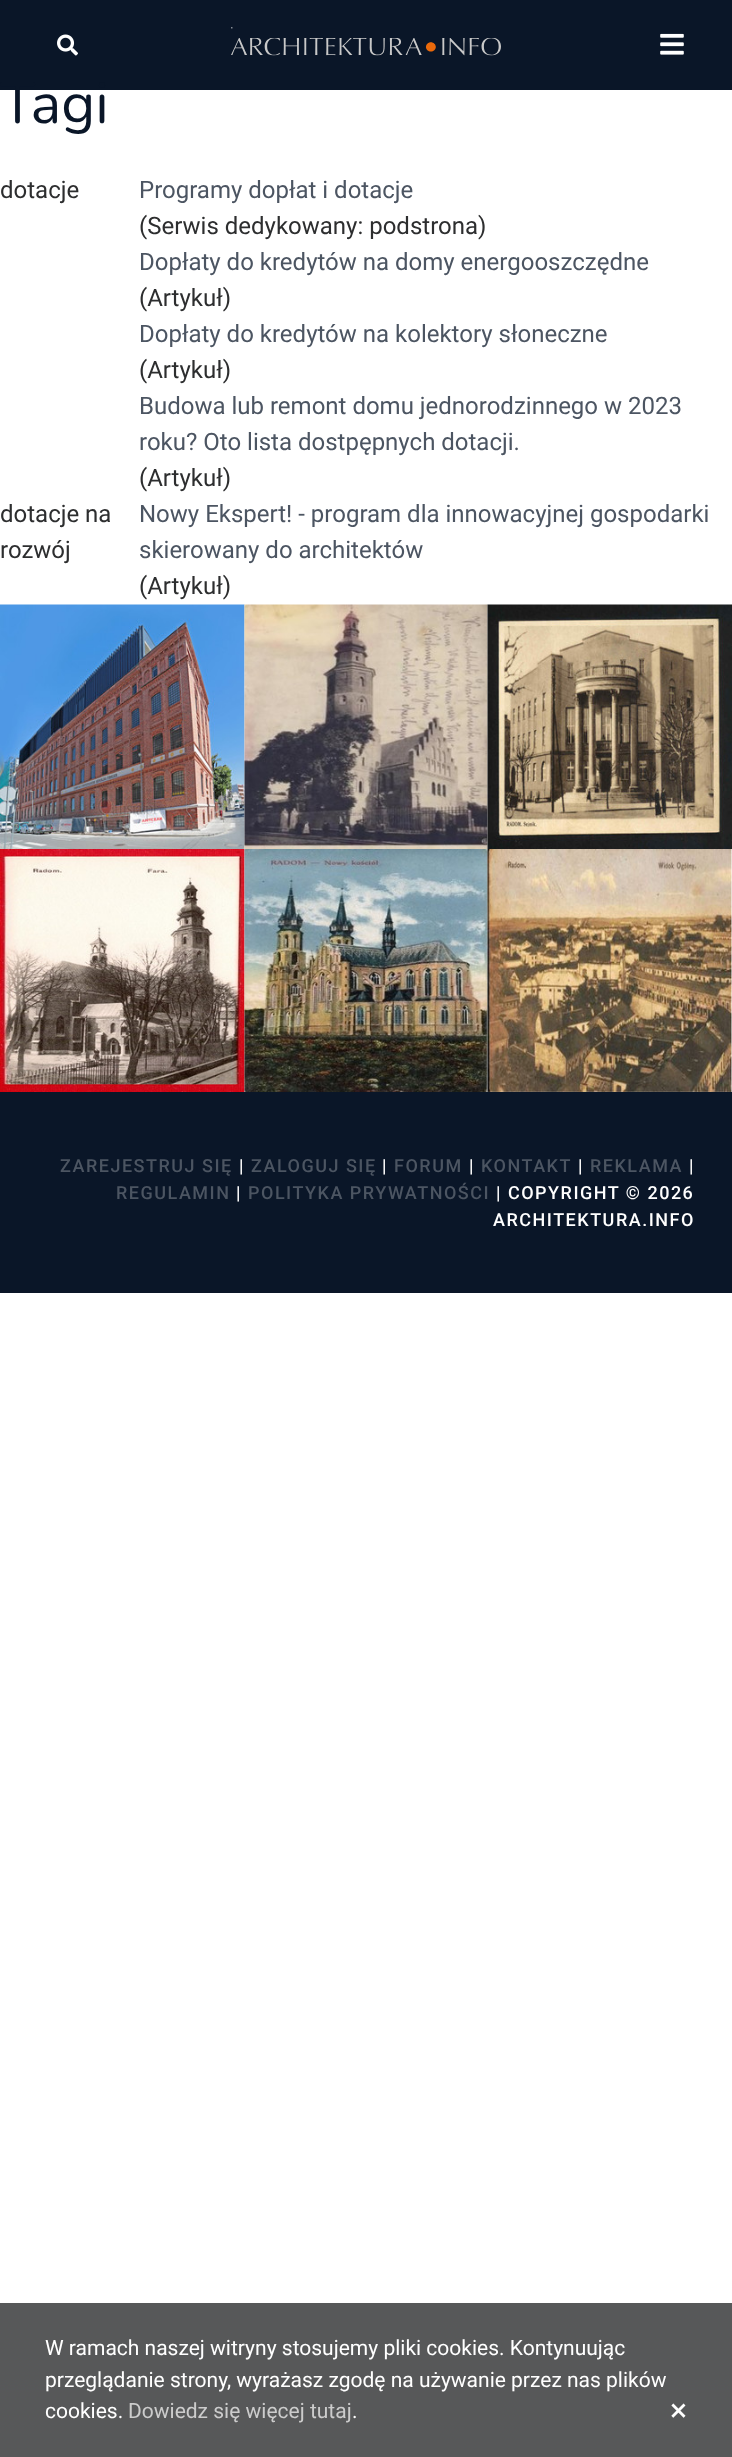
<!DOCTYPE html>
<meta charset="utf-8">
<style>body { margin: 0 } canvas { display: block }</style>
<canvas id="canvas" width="732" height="2457"></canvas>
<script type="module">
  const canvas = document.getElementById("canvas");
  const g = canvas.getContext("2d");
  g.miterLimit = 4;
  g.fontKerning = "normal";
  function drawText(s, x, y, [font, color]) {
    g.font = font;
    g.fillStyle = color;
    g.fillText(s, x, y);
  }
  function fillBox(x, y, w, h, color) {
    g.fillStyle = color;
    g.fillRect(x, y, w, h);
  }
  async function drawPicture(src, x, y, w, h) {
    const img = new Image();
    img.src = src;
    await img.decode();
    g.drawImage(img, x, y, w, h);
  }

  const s1 = ["58px Nunito", "#0A1628"];
  const s2 = ["24px Roboto", "#2D2E2F"];
  const s3 = ["24px Roboto", "#4C5562"];
  const s4 = ["500 18px Roboto", "#4C5562"];
  const s5 = ["500 18px Roboto", "#FFFFFF"];
  const s6 = ["21px Roboto", "#FFFFFF"];
  const s7 = ["21px Roboto", "#CCCCCC"];
  const s8 = ["32px Roboto", "#FFFFFF"];

  fillBox(0, 0, 732, 2457, "#FFFFFF");
  fillBox(0, 0, 732, 90, "#0A1628");
  await drawPicture("pic1.png", 57, 34, 21, 22);
  await drawPicture("pic2.png", 231, 27, 2, 2);
  await drawPicture("pic3.png", 231, 38, 270, 18);
  await drawPicture("pic4.png", 660, 33, 24, 22);
  drawText("Tagi", 0, 123, s1);
  drawText("dotacje", 0, 198, s2);
  drawText("Programy dopłat i dotacje", 139, 198, s3);
  drawText("(Serwis dedykowany: podstrona)", 139, 234, s2);
  drawText("Dopłaty do kredytów na domy energooszczędne", 139, 270, s3);
  drawText("(Artykuł)", 139, 306, s2);
  drawText("Dopłaty do kredytów na kolektory słoneczne", 139, 342, s3);
  drawText("(Artykuł)", 139, 378, s2);
  drawText("Budowa lub remont domu jednorodzinnego w 2023", 139, 414, s3);
  drawText("roku? Oto lista dostpępnych dotacji.", 139, 450, s3);
  drawText("(Artykuł)", 139, 486, s2);
  drawText("dotacje na", 0, 522, s2);
  drawText("rozwój", 0, 558, s2);
  drawText("Nowy Ekspert! - program dla innowacyjnej gospodarki", 139, 522, s3);
  drawText("skierowany do architektów", 139, 558, s3);
  drawText("(Artykuł)", 139, 594, s2);
  await drawPicture("pic5.png", 0, 604, 245, 245);
  await drawPicture("pic6.png", 244, 604, 244, 245);
  await drawPicture("pic7.png", 487, 604, 245, 245);
  await drawPicture("pic8.png", 0, 849, 245, 243);
  await drawPicture("pic9.png", 244, 849, 244, 243);
  await drawPicture("pic10.png", 487, 849, 245, 243);
  fillBox(0, 1092, 732, 201, "#0A1628");
  g.letterSpacing = "1.5px";
  drawText("ZAREJESTRUJ SIĘ", 60, 1172, s4);
  drawText("|", 239, 1172, s5);
  drawText("ZALOGUJ SIĘ", 251, 1172, s4);
  drawText("|", 382, 1172, s5);
  drawText("FORUM", 394, 1172, s4);
  drawText("|", 469, 1172, s5);
  drawText("KONTAKT", 481, 1172, s4);
  drawText("|", 578, 1172, s5);
  drawText("REKLAMA", 590, 1172, s4);
  drawText("|", 689, 1172, s5);
  drawText("REGULAMIN", 116, 1199, s4);
  drawText("|", 236, 1199, s5);
  drawText("POLITYKA PRYWATNOŚCI", 248, 1199, s4);
  drawText("| COPYRIGHT © 2026", 496, 1199, s5);
  drawText("ARCHITEKTURA.INFO", 493, 1226, s5);
  fillBox(0, 2303, 732, 154, "#575859");
  g.letterSpacing = "0px";
  drawText("W ramach naszej witryny stosujemy pliki cookies. Kontynuując", 45, 2355, s6);
  drawText("przeglądanie strony, wyrażasz zgodę na używanie przez nas plików", 45, 2387, s6);
  drawText("cookies.", 45, 2418, s6);
  drawText("Dowiedz się więcej tutaj", 128, 2418, s7);
  drawText(".", 352, 2418, s6);
  drawText("×", 670, 2421, s8);
</script>
